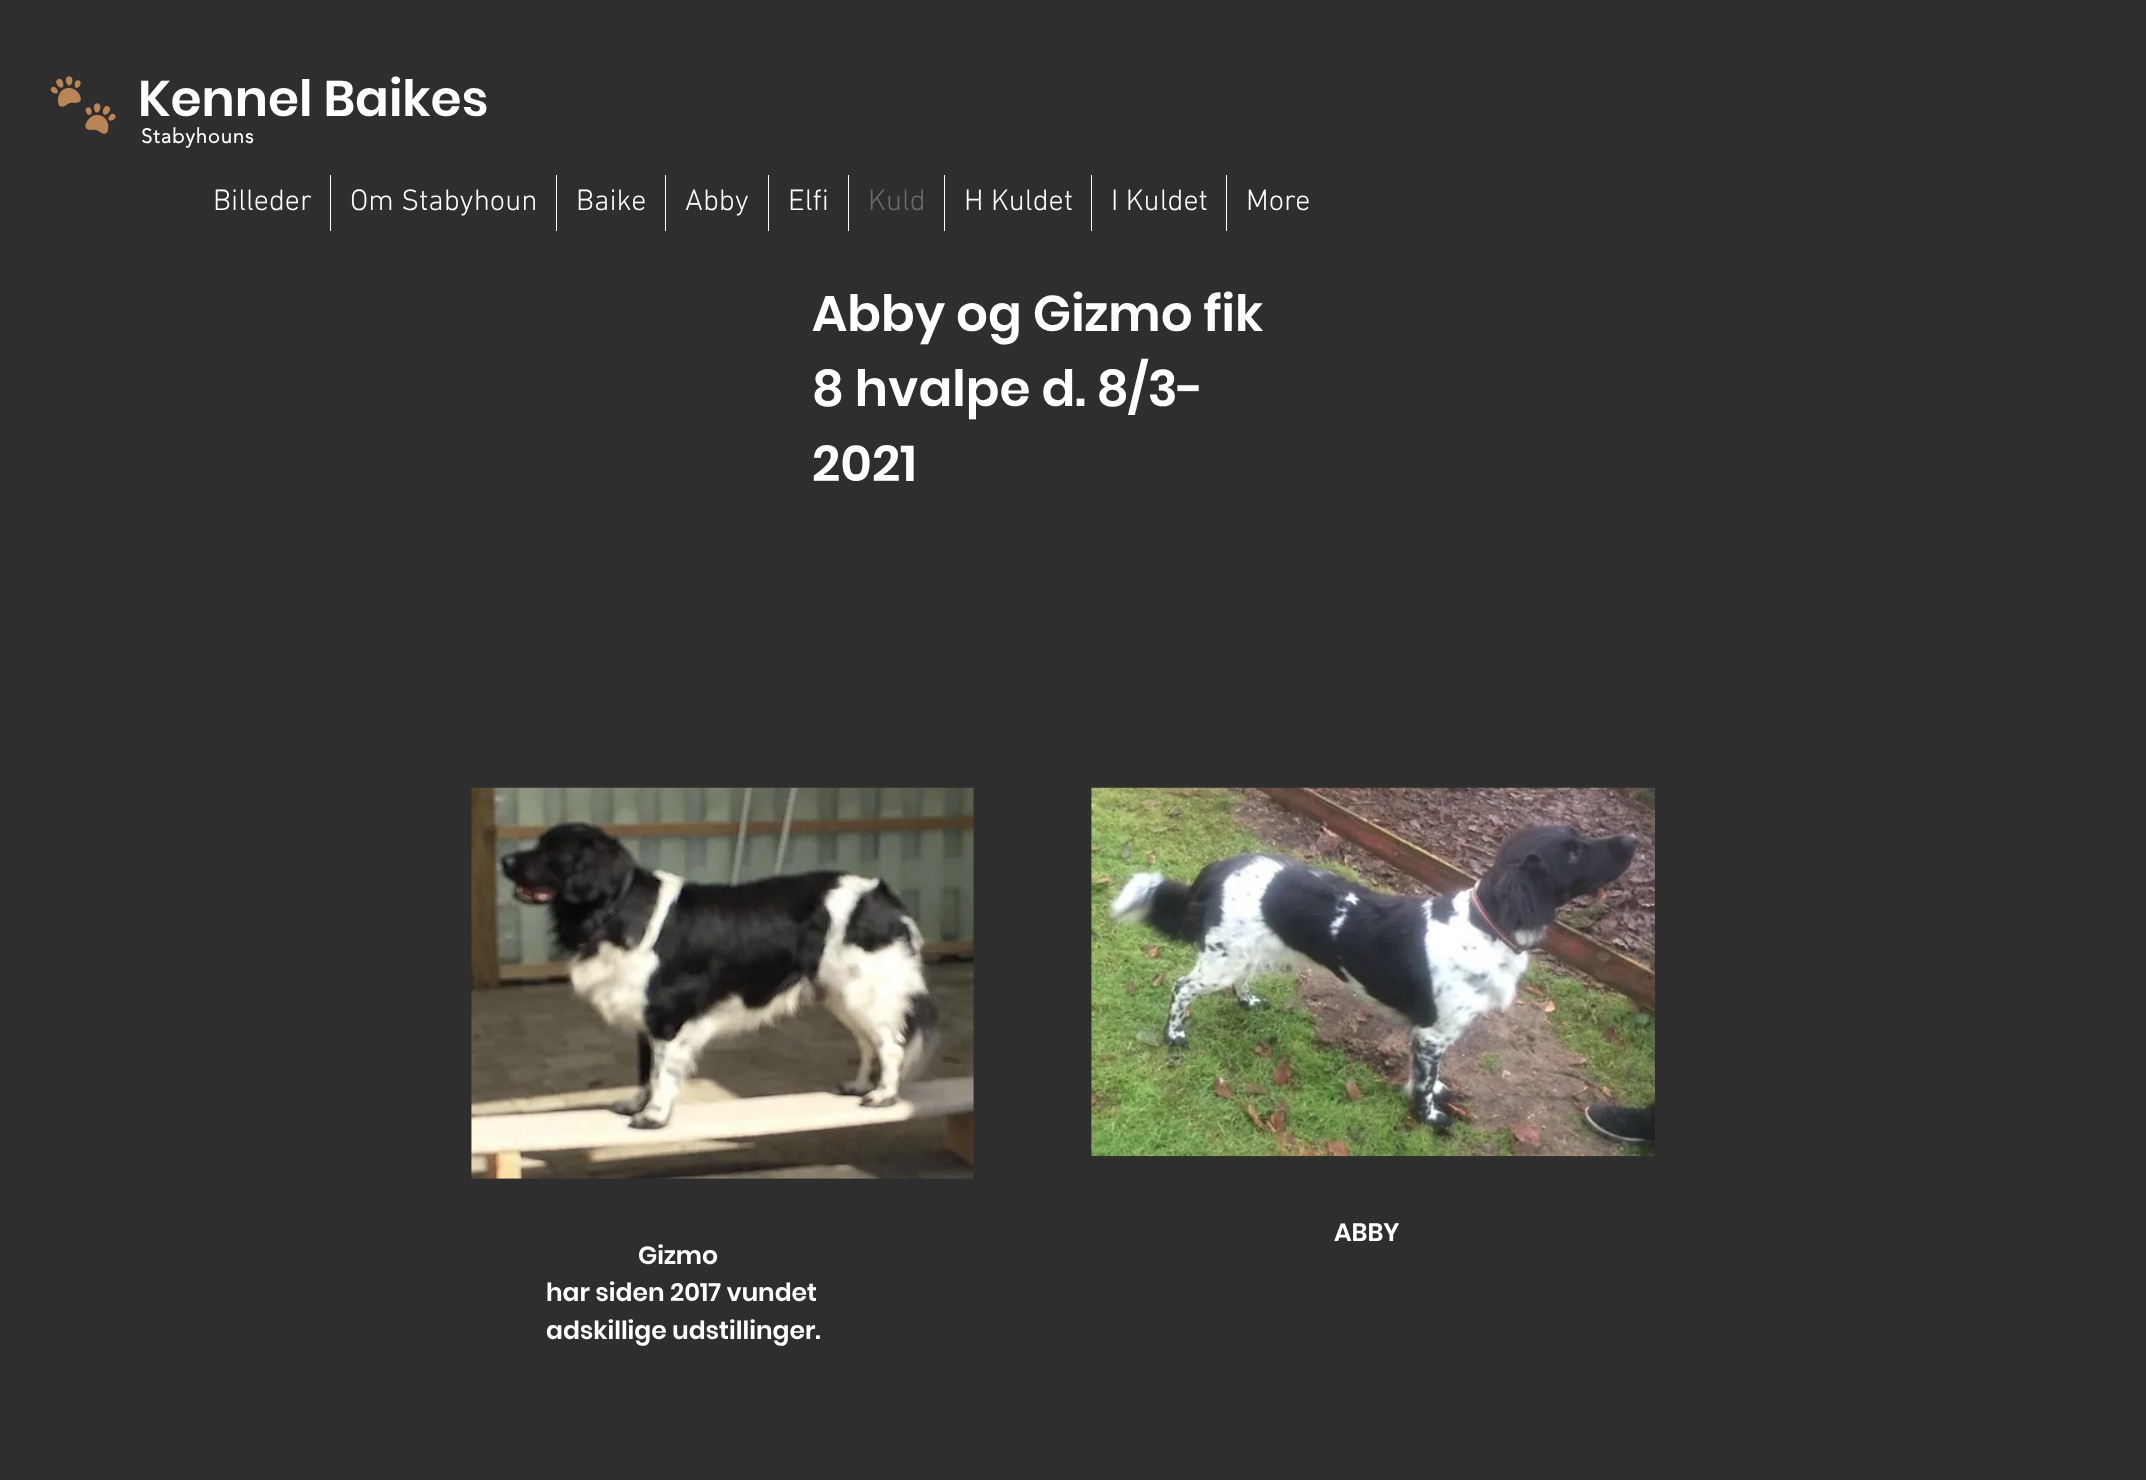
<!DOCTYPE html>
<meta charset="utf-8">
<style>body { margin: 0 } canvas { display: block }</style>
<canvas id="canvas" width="2146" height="1480"></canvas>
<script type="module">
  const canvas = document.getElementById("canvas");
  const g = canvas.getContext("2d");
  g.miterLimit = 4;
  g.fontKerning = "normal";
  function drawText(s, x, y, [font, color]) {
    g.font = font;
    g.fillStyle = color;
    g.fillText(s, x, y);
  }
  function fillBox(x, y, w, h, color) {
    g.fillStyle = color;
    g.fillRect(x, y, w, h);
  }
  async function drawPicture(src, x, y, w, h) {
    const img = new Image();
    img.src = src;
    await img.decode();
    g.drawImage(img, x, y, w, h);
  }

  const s1 = ["600 50px Poppins", "#FFFFFF"];
  const s2 = ["bold 20px 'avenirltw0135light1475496'", "#FFFFFF"];
  const s3 = ["300 30px 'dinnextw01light'", "#FFFFFF"];
  const s4 = ["300 30px 'dinnextw01light'", "#6B6B6A"];
  const s5 = ["600 25px Poppins", "#FFFFFF"];

  fillBox(0, 0, 2146, 1480, "#2F2E2E");
  await drawPicture("pic1.png", 50, 76, 66, 58);
  drawText("Kennel Baikes", 138, 116, s1);
  g.letterSpacing = "1px";
  drawText("Stabyhouns", 141, 143, s2);
  g.letterSpacing = "0px";
  drawText("Billeder", 213, 210, s3);
  fillBox(330, 175, 1, 56, "#FFFFFF");
  drawText("Om Stabyhoun", 350, 210, s3);
  fillBox(556, 175, 1, 56, "#FFFFFF");
  drawText("Baike", 576, 210, s3);
  fillBox(665, 175, 1, 56, "#FFFFFF");
  drawText("Abby", 685, 210, s3);
  fillBox(768, 175, 1, 56, "#FFFFFF");
  drawText("Elfi", 788, 210, s3);
  fillBox(848, 175, 1, 56, "#FFFFFF");
  drawText("Kuld", 868, 210, s4);
  fillBox(944, 175, 1, 56, "#FFFFFF");
  drawText("H Kuldet", 964, 210, s3);
  fillBox(1091, 175, 1, 56, "#FFFFFF");
  drawText("I Kuldet", 1111, 210, s3);
  fillBox(1226, 175, 1, 56, "#FFFFFF");
  drawText("More", 1246, 210, s3);
  drawText("Abby og Gizmo fik", 812, 331, s1);
  drawText("8 hvalpe d. 8/3-", 812, 406, s1);
  drawText("2021", 812, 481, s1);
  await drawPicture("pic2.png", 471, 787, 503, 392);
  await drawPicture("pic3.png", 1091, 787, 564, 370);
  drawText("ABBY", 1334, 1241, s5);
  drawText("Gizmo", 638, 1264, s5);
  drawText("har siden 2017 vundet", 546, 1301, s5);
  drawText("adskillige udstillinger.", 546, 1339, s5);
</script>
